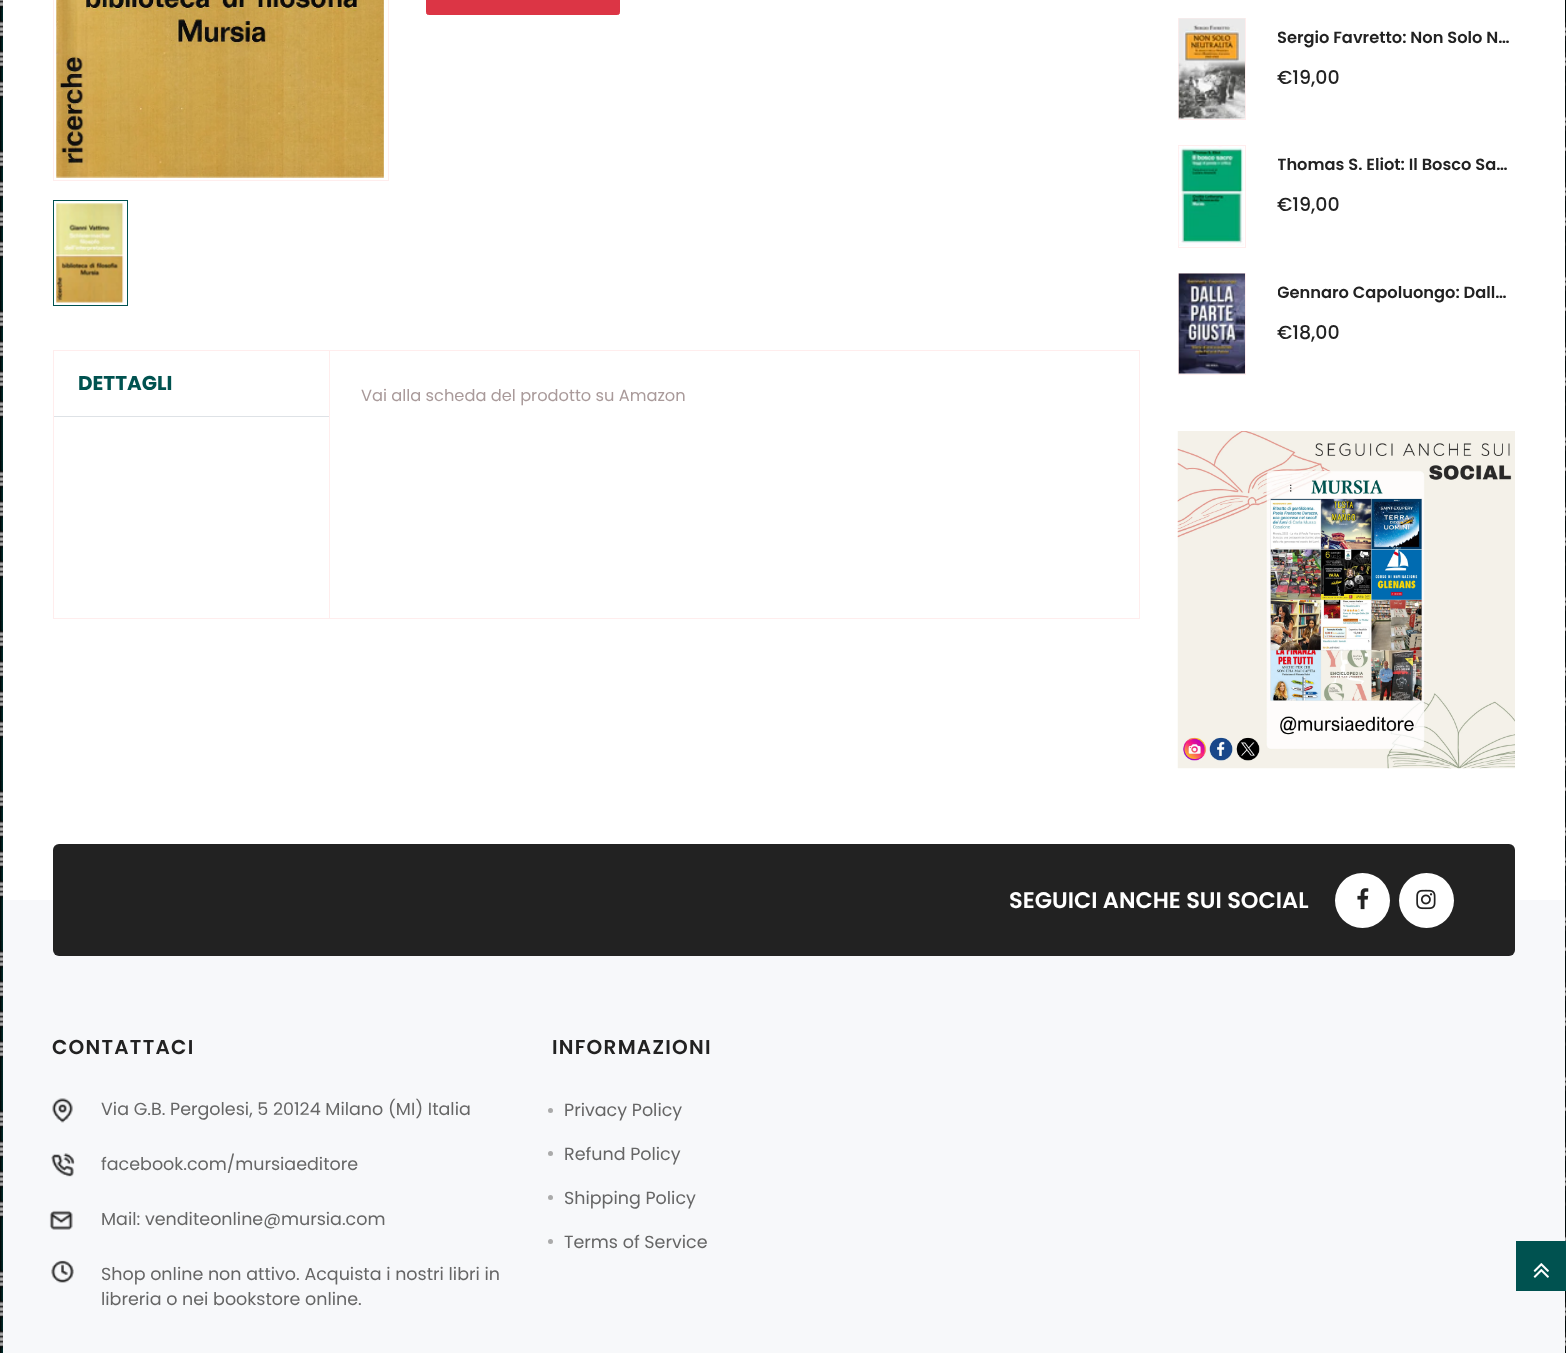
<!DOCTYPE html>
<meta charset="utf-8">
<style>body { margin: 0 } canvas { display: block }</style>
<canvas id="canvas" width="1566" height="1353"></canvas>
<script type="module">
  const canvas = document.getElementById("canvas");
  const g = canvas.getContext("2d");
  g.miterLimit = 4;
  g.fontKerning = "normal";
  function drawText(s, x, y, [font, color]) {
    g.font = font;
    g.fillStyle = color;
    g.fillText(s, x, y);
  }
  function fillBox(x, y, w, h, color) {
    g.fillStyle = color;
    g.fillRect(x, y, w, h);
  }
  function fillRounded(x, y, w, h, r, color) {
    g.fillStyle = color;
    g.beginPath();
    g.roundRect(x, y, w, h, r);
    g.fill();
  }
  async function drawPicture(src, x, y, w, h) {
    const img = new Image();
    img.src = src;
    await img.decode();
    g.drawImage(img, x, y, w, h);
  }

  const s1 = ["600 16.25px Poppins", "#222222"];
  const s2 = ["500 19px Poppins", "#222222"];
  const s3 = ["bold 20px Poppins", "#005250"];
  const s4 = ["16.25px Poppins", "#A99A9A"];
  const s5 = ["600 22.5px Poppins", "#FFFFFF"];
  const s6 = ["600 20px Poppins", "#222222"];
  const s7 = ["17.5px Poppins", "#666666"];

  fillBox(0, 0, 1566, 1353, "#FFFFFF");
  await drawPicture("pic1.png", 0, 0, 1566, 1353);
  g.fillStyle = "rgba(0, 0, 0, 0.2)";
  g.filter = "blur(6px)";
  g.beginPath();
  g.roundRect(3, -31, 1562, 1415, 13);
  g.fill();
  g.filter = "none";
  fillBox(3, 0, 1562, 900, "#FFFFFF");
  g.strokeStyle = "#FFEDED";
  g.strokeRect(1178.5, 18.5, 67, 101);
  await drawPicture("pic2.png", 1178, 18, 67, 101);
  g.save();
  g.beginPath();
  g.rect(1278, 24, 237, 27);
  g.clip();
  drawText("Sergio Favretto: Non Solo N…", 1277, 43, s1);
  g.restore();
  drawText("€19,00", 1277, 84, s2);
  g.strokeRect(1178.5, 145.5, 67, 102);
  await drawPicture("pic3.png", 1178, 146, 66, 100);
  g.save();
  g.beginPath();
  g.rect(1278, 151, 237, 28);
  g.clip();
  drawText("Thomas S. Eliot: Il Bosco Sa…", 1277, 170, s1);
  g.restore();
  drawText("€19,00", 1277, 211, s2);
  g.strokeRect(1178.5, 273.5, 67, 101);
  await drawPicture("pic4.png", 1178, 273, 67, 101);
  g.save();
  g.beginPath();
  g.rect(1278, 279, 237, 27);
  g.clip();
  drawText("Gennaro Capoluongo: Dall…", 1277, 298, s1);
  g.restore();
  drawText("€18,00", 1277, 339, s2);
  await drawPicture("pic5.png", 1177, 431, 338, 338);
  fillBox(388, 0, 1, 181, "#FFEDED");
  fillBox(53, 180, 336, 1, "#FFEDED");
  fillBox(53, 0, 1, 181, "#FFEDED");
  await drawPicture("pic6.png", 56, 0, 328, 178);
  g.strokeStyle = "#005250";
  g.strokeRect(53.5, 200.5, 74, 105);
  await drawPicture("pic7.png", 56, 203, 68, 100);
  g.fillStyle = "#DC3545";
  g.beginPath();
  g.roundRect(426.5, -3.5, 193, 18, 2);
  g.fill();
  g.strokeStyle = "#DC3545";
  g.stroke();
  g.strokeStyle = "#FFEDED";
  g.strokeRect(53.5, 350.5, 1086, 268);
  fillBox(54, 416, 275, 1, "#DEE2E6");
  drawText("DETTAGLI", 78, 390, s3);
  fillBox(329, 351, 1, 267, "#FFEDED");
  drawText("Vai alla scheda del prodotto su Amazon", 361, 401, s4);
  fillBox(3, 900, 1562, 453, "#F7F8FA");
  fillRounded(53, 844, 1462, 112, 6, "#222222");
  drawText("SEGUICI ANCHE SUI SOCIAL", 1009, 908, s5);
  g.beginPath();
  g.arc(1362.5, 900.5, 27.5, 0, Math.PI * 2);
  g.fill();
  await drawPicture("pic8.png", 1357, 888, 12, 22);
  g.beginPath();
  g.arc(1426.5, 900.5, 27.5, 0, Math.PI * 2);
  g.fill();
  await drawPicture("pic9.png", 1416, 889, 20, 21);
  g.letterSpacing = "1.25px";
  drawText("CONTATTACI", 52, 1054, s6);
  await drawPicture("pic10.png", 52, 1098, 21, 25);
  g.letterSpacing = "0px";
  drawText("Via G.B. Pergolesi, 5 20124 Milano (MI) Italia", 101, 1115, s7);
  await drawPicture("pic11.png", 51, 1153, 24, 24);
  drawText("facebook.com/mursiaeditore", 101, 1170, s7);
  await drawPicture("pic12.png", 49, 1210, 24, 20);
  drawText("Mail: venditeonline@mursia.com", 101, 1225, s7);
  await drawPicture("pic13.png", 51, 1260, 23, 23);
  drawText("Shop online non attivo. Acquista i nostri libri in", 101, 1280, s7);
  drawText("libreria o nei bookstore online.", 101, 1305, s7);
  g.letterSpacing = "1.25px";
  drawText("INFORMAZIONI", 552, 1054, s6);
  g.fillStyle = "#AAAAAA";
  g.beginPath();
  g.arc(550.5, 1110.5, 2.5, 0, Math.PI * 2);
  g.fill();
  g.letterSpacing = "0px";
  drawText("Privacy Policy", 564, 1116, s7);
  g.fillStyle = "#AAAAAA";
  g.beginPath();
  g.arc(550.5, 1153.5, 2.5, 0, Math.PI * 2);
  g.fill();
  drawText("Refund Policy", 564, 1160, s7);
  g.fillStyle = "#AAAAAA";
  g.beginPath();
  g.arc(550.5, 1197.5, 2.5, 0, Math.PI * 2);
  g.fill();
  drawText("Shipping Policy", 564, 1204, s7);
  g.fillStyle = "#AAAAAA";
  g.beginPath();
  g.arc(550.5, 1241.5, 2.5, 0, Math.PI * 2);
  g.fill();
  drawText("Terms of Service", 564, 1248, s7);
  fillBox(1516, 1241, 50, 50, "#005250");
  await drawPicture("pic14.png", 1533, 1263, 16, 15);
</script>
